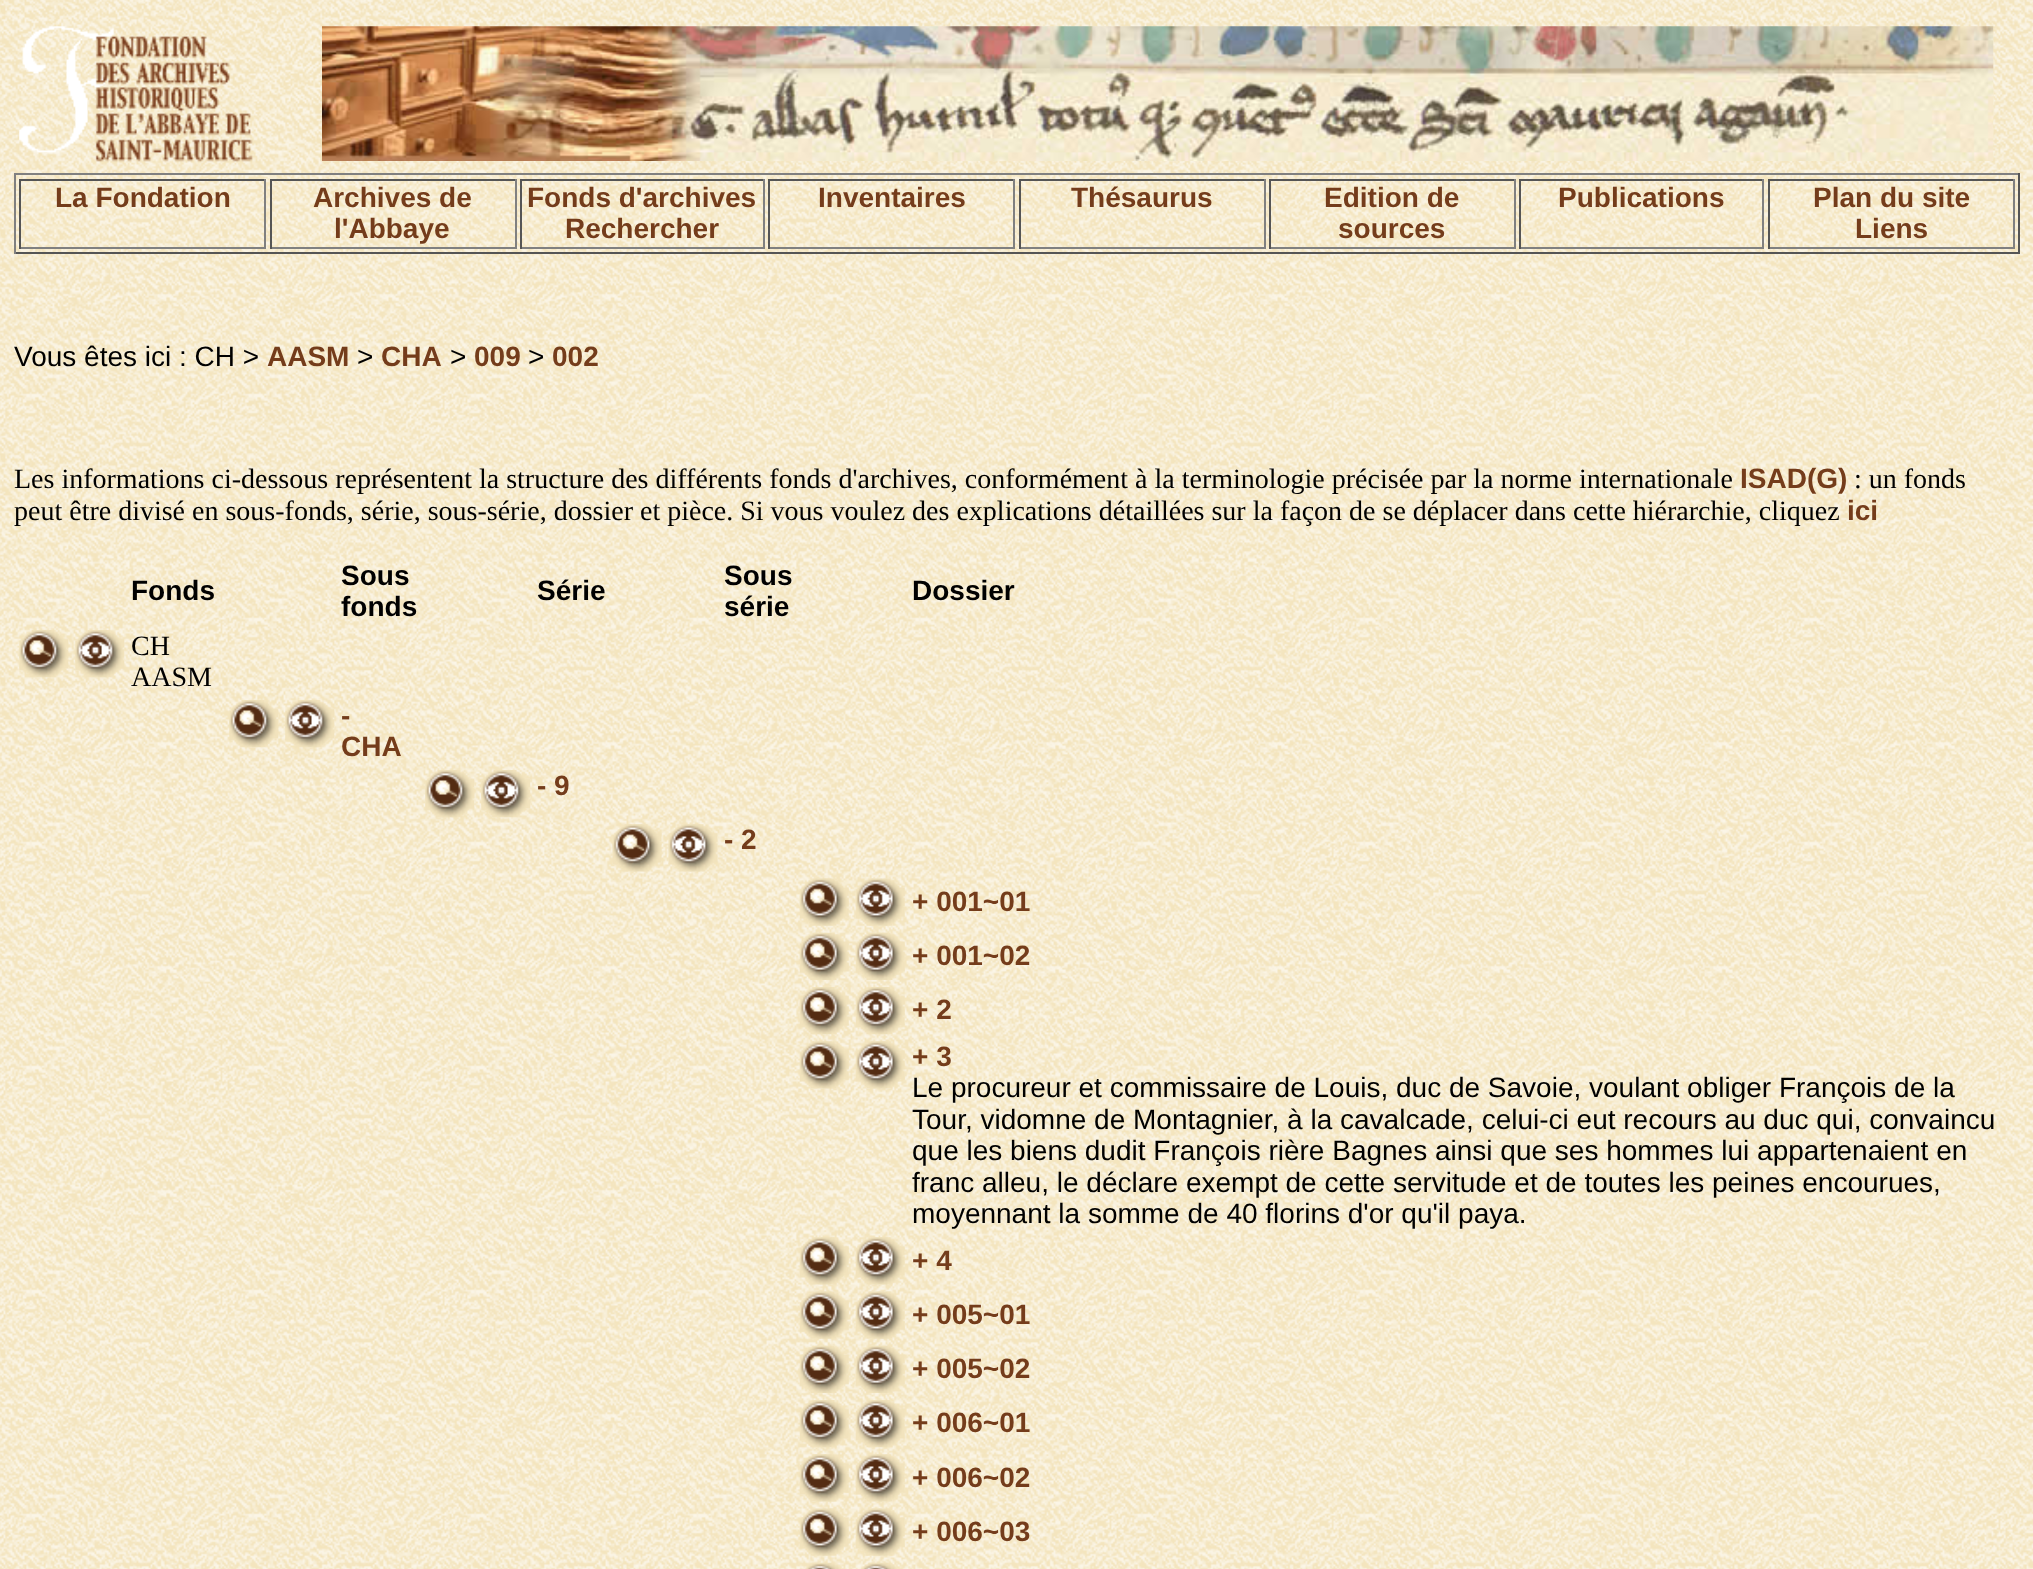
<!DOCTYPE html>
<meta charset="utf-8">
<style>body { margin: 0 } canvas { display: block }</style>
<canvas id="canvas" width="2033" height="1569"></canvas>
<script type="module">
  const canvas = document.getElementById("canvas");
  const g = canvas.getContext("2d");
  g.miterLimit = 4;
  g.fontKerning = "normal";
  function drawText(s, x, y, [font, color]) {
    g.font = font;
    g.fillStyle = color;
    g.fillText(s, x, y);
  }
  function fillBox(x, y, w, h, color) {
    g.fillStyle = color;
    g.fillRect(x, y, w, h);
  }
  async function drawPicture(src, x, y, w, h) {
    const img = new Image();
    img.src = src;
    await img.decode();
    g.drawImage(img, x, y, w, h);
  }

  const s1 = ["bold 28px Liberation Sans", "#743C1B"];
  const s2 = ["28px Liberation Sans", "#000000"];
  const s3 = ["28px Liberation Serif", "#000000"];
  const s4 = ["bold 28px Liberation Sans", "#000000"];

  fillBox(0, 0, 2033, 1569, "#FFFFFF");
  await drawPicture("pic1.png", 0, 0, 2033, 1569);
  await drawPicture("pic2.png", 19, 26, 234, 136);
  await drawPicture("pic3.png", 322, 26, 1672, 135);
  fillBox(14, 173, 2006, 2, "#808080");
  fillBox(2018, 173, 2, 81, "#555555");
  fillBox(14, 252, 2006, 2, "#555555");
  fillBox(14, 173, 2, 81, "#808080");
  fillBox(19, 179, 247, 2, "#555555");
  fillBox(264, 179, 2, 70, "#808080");
  fillBox(19, 247, 247, 2, "#808080");
  fillBox(19, 179, 2, 70, "#555555");
  drawText("La Fondation", 55, 207, s1);
  fillBox(270, 179, 246, 2, "#555555");
  fillBox(515, 179, 2, 70, "#808080");
  fillBox(270, 247, 246, 2, "#808080");
  fillBox(270, 179, 2, 70, "#555555");
  drawText("Archives de", 313, 207, s1);
  drawText("l'Abbaye", 334, 238, s1);
  fillBox(520, 179, 245, 2, "#555555");
  fillBox(763, 179, 2, 70, "#808080");
  fillBox(520, 247, 245, 2, "#808080");
  fillBox(520, 179, 2, 70, "#555555");
  drawText("Fonds d'archives", 527, 207, s1);
  drawText("Rechercher", 565, 238, s1);
  fillBox(768, 179, 247, 2, "#555555");
  fillBox(1013, 179, 2, 70, "#808080");
  fillBox(768, 247, 247, 2, "#808080");
  fillBox(768, 179, 2, 70, "#555555");
  drawText("Inventaires", 818, 207, s1);
  fillBox(1019, 179, 246, 2, "#555555");
  fillBox(1264, 179, 2, 70, "#808080");
  fillBox(1019, 247, 246, 2, "#808080");
  fillBox(1019, 179, 2, 70, "#555555");
  drawText("Thésaurus", 1071, 207, s1);
  fillBox(1269, 179, 247, 2, "#555555");
  fillBox(1514, 179, 2, 70, "#808080");
  fillBox(1269, 247, 247, 2, "#808080");
  fillBox(1269, 179, 2, 70, "#555555");
  drawText("Edition de", 1324, 207, s1);
  drawText("sources", 1338, 238, s1);
  fillBox(1519, 179, 245, 2, "#555555");
  fillBox(1762, 179, 2, 70, "#808080");
  fillBox(1519, 247, 245, 2, "#808080");
  fillBox(1519, 179, 2, 70, "#555555");
  drawText("Publications", 1558, 207, s1);
  fillBox(1768, 179, 246, 2, "#555555");
  fillBox(2013, 179, 2, 70, "#808080");
  fillBox(1768, 247, 246, 2, "#808080");
  fillBox(1768, 179, 2, 70, "#555555");
  drawText("Plan du site", 1813, 207, s1);
  drawText("Liens", 1855, 238, s1);
  drawText("Vous êtes ici : CH >", 14, 366, s2);
  drawText("AASM", 267, 366, s1);
  drawText(">", 357, 366, s2);
  drawText("CHA", 381, 366, s1);
  drawText(">", 450, 366, s2);
  drawText("009", 474, 366, s1);
  drawText(">", 528, 366, s2);
  drawText("002", 552, 366, s1);
  drawText("Les informations ci-dessous représentent la structure des différents fonds d'archives, conformément à la terminologie précisée par la norme internationale", 14, 488, s3);
  drawText("ISAD(G)", 1740, 488, s1);
  drawText(": un fonds", 1854, 488, s3);
  drawText("peut être divisé en sous-fonds, série, sous-série, dossier et pièce. Si vous voulez des explications détaillées sur la façon de se déplacer dans cette hiérarchie, cliquez", 14, 520, s3);
  drawText("ici", 1847, 520, s1);
  drawText("Fonds", 131, 600, s4);
  drawText("Sous", 341, 585, s4);
  drawText("fonds", 341, 616, s4);
  drawText("Série", 537, 600, s4);
  drawText("Sous", 724, 585, s4);
  drawText("série", 724, 616, s4);
  drawText("Dossier", 912, 600, s4);
  await drawPicture("pic4.png", 19, 630, 50, 48);
  await drawPicture("pic5.png", 75, 630, 50, 48);
  drawText("CH", 131, 655, s3);
  drawText("AASM", 131, 686, s3);
  await drawPicture("pic6.png", 229, 700, 50, 48);
  await drawPicture("pic7.png", 285, 700, 50, 48);
  drawText("-", 341, 725, s1);
  drawText("CHA", 341, 756, s1);
  await drawPicture("pic8.png", 425, 770, 50, 48);
  await drawPicture("pic9.png", 481, 770, 50, 48);
  drawText("- 9", 537, 795, s1);
  await drawPicture("pic10.png", 612, 824, 50, 48);
  await drawPicture("pic11.png", 668, 824, 50, 48);
  drawText("- 2", 724, 849, s1);
  await drawPicture("pic12.png", 799, 878, 50, 48);
  await drawPicture("pic13.png", 855, 878, 50, 48);
  drawText("+ 001~01", 912, 911, s1);
  await drawPicture("pic14.png", 799, 932, 50, 48);
  await drawPicture("pic15.png", 855, 932, 50, 48);
  drawText("+ 001~02", 912, 965, s1);
  await drawPicture("pic16.png", 799, 987, 50, 48);
  await drawPicture("pic17.png", 855, 987, 50, 48);
  drawText("+ 2", 912, 1019, s1);
  await drawPicture("pic18.png", 799, 1041, 50, 48);
  await drawPicture("pic19.png", 855, 1041, 50, 48);
  drawText("+ 3", 912, 1066, s1);
  drawText("Le procureur et commissaire de Louis, duc de Savoie, voulant obliger François de la", 912, 1097, s2);
  drawText("Tour, vidomne de Montagnier, à la cavalcade, celui-ci eut recours au duc qui, convaincu", 912, 1129, s2);
  drawText("que les biens dudit François rière Bagnes ainsi que ses hommes lui appartenaient en", 912, 1160, s2);
  drawText("franc alleu, le déclare exempt de cette servitude et de toutes les peines encourues,", 912, 1192, s2);
  drawText("moyennant la somme de 40 florins d'or qu'il paya.", 912, 1223, s2);
  await drawPicture("pic20.png", 799, 1237, 50, 48);
  await drawPicture("pic21.png", 855, 1237, 50, 48);
  drawText("+ 4", 912, 1270, s1);
  await drawPicture("pic22.png", 799, 1291, 50, 48);
  await drawPicture("pic23.png", 855, 1291, 50, 48);
  drawText("+ 005~01", 912, 1324, s1);
  await drawPicture("pic24.png", 799, 1345, 50, 48);
  await drawPicture("pic25.png", 855, 1345, 50, 48);
  drawText("+ 005~02", 912, 1378, s1);
  await drawPicture("pic26.png", 799, 1400, 50, 48);
  await drawPicture("pic27.png", 855, 1400, 50, 48);
  drawText("+ 006~01", 912, 1432, s1);
  await drawPicture("pic28.png", 799, 1454, 50, 48);
  await drawPicture("pic29.png", 855, 1454, 50, 48);
  drawText("+ 006~02", 912, 1487, s1);
  await drawPicture("pic30.png", 799, 1508, 50, 48);
  await drawPicture("pic31.png", 855, 1508, 50, 48);
  drawText("+ 006~03", 912, 1541, s1);
  await drawPicture("pic32.png", 804, 1562, 37, 7);
  await drawPicture("pic33.png", 861, 1562, 37, 7);
</script>
